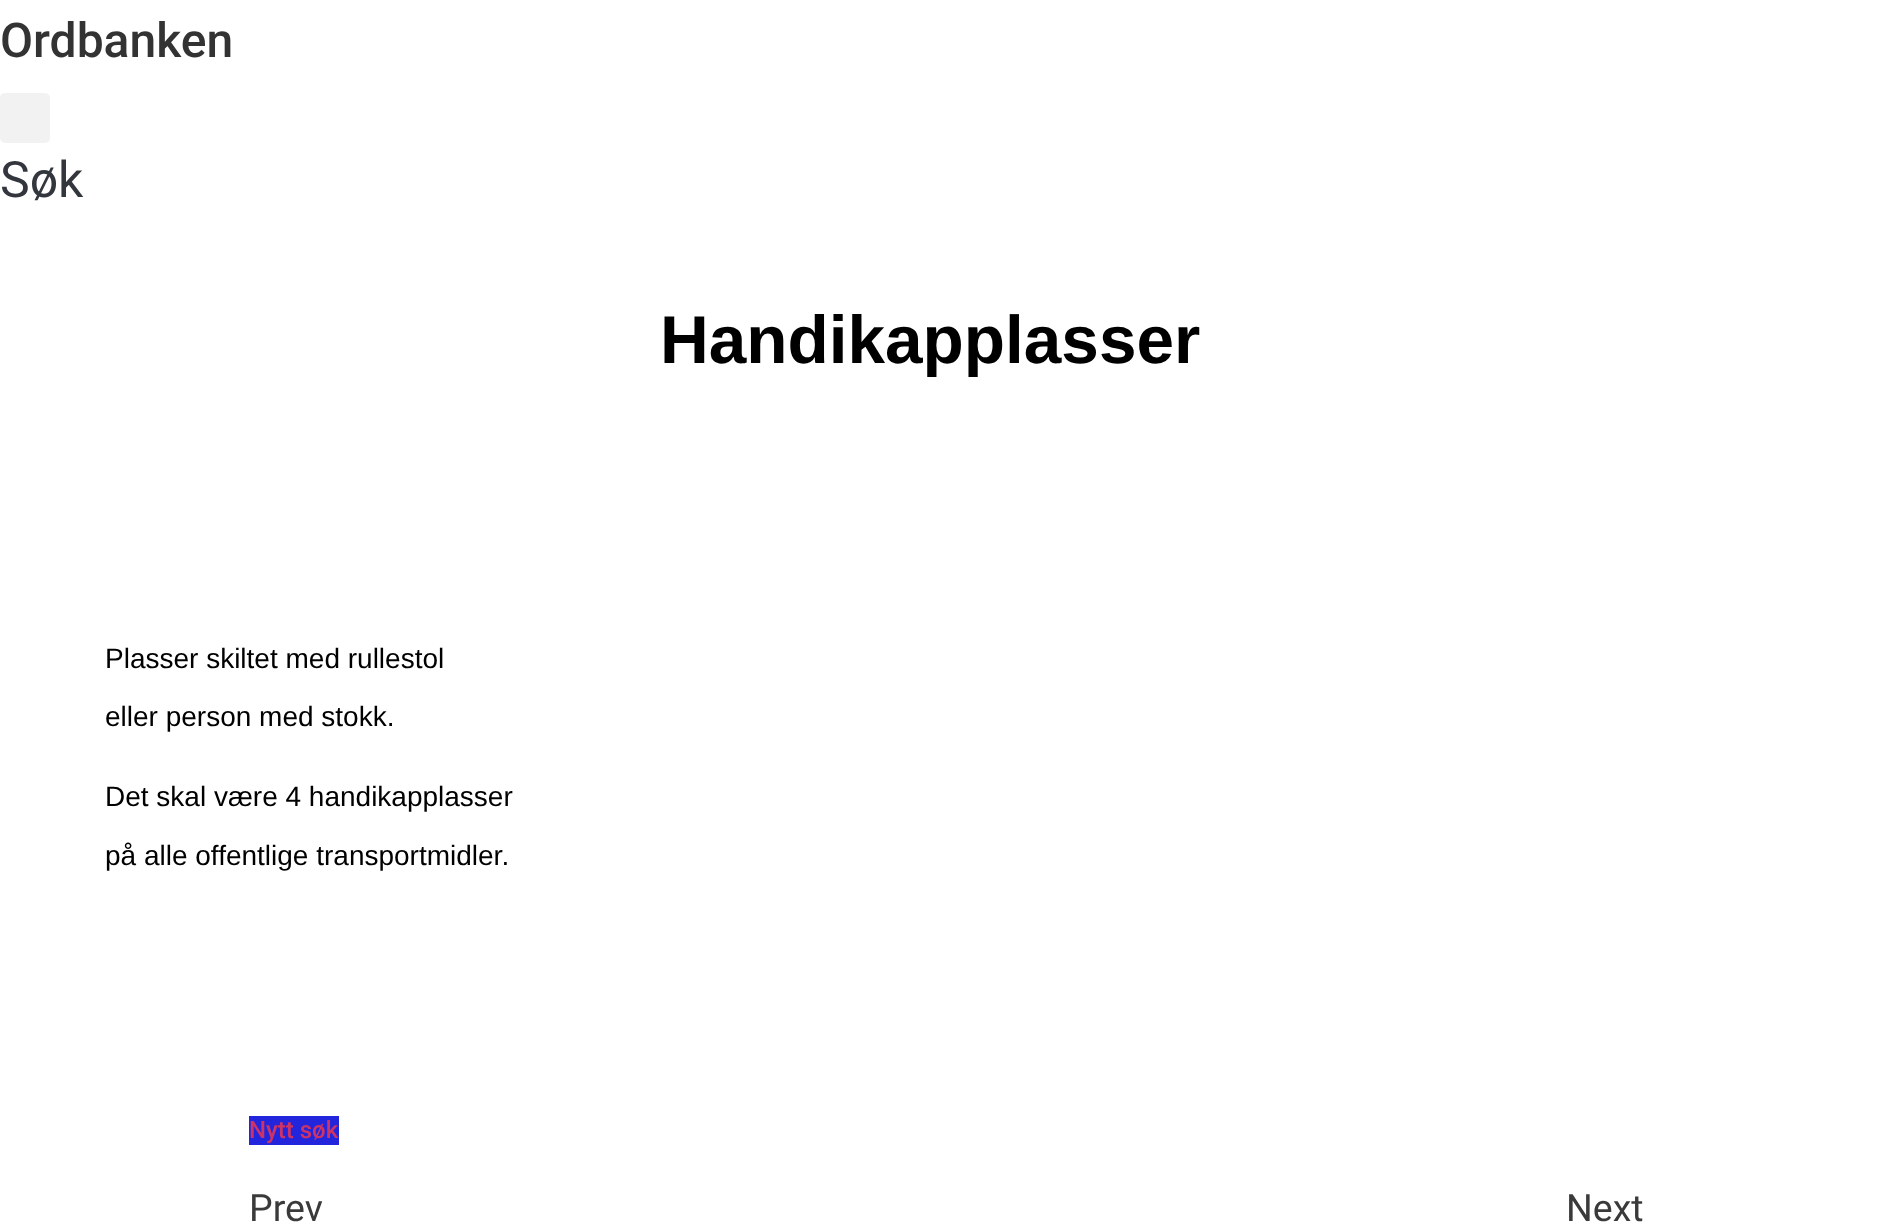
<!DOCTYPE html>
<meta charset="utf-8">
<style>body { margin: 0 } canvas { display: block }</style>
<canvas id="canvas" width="1894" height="1232"></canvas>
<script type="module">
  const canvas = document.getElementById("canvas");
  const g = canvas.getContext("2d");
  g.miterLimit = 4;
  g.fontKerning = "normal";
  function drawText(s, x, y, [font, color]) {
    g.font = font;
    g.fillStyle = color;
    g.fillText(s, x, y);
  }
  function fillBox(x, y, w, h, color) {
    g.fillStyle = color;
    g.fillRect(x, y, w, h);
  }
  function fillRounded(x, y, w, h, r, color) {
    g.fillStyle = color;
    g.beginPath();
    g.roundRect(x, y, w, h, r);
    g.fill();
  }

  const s1 = ["500 48px Roboto", "#333333"];
  const s2 = ["50px Roboto", "#33373D"];
  const s3 = ["bold 67.5px Liberation Sans", "#000000"];
  const s4 = ["28px Liberation Sans", "#000000"];
  const s5 = ["500 24px Roboto", "#CC3366"];
  const s6 = ["37.5px Roboto", "#3A3A3A"];

  fillBox(0, 0, 1894, 1232, "#FFFFFF");
  drawText("Ordbanken", 0, 57, s1);
  fillRounded(0, 93, 50, 50, 5, "#F2F2F2");
  drawText("Søk", 0, 197, s2);
  drawText("Handikapplasser", 660, 363, s3);
  drawText("Plasser skiltet med rullestol", 105, 668, s4);
  drawText("eller person med stokk.", 105, 726, s4);
  drawText("Det skal være 4 handikapplasser", 105, 806, s4);
  drawText("på alle offentlige transportmidler.", 105, 865, s4);
  fillBox(249, 1116, 90, 29, "#2325DD");
  drawText("Nytt søk", 249, 1138, s5);
  drawText("Prev", 249, 1221, s6);
  drawText("Next", 1566, 1221, s6);
</script>
